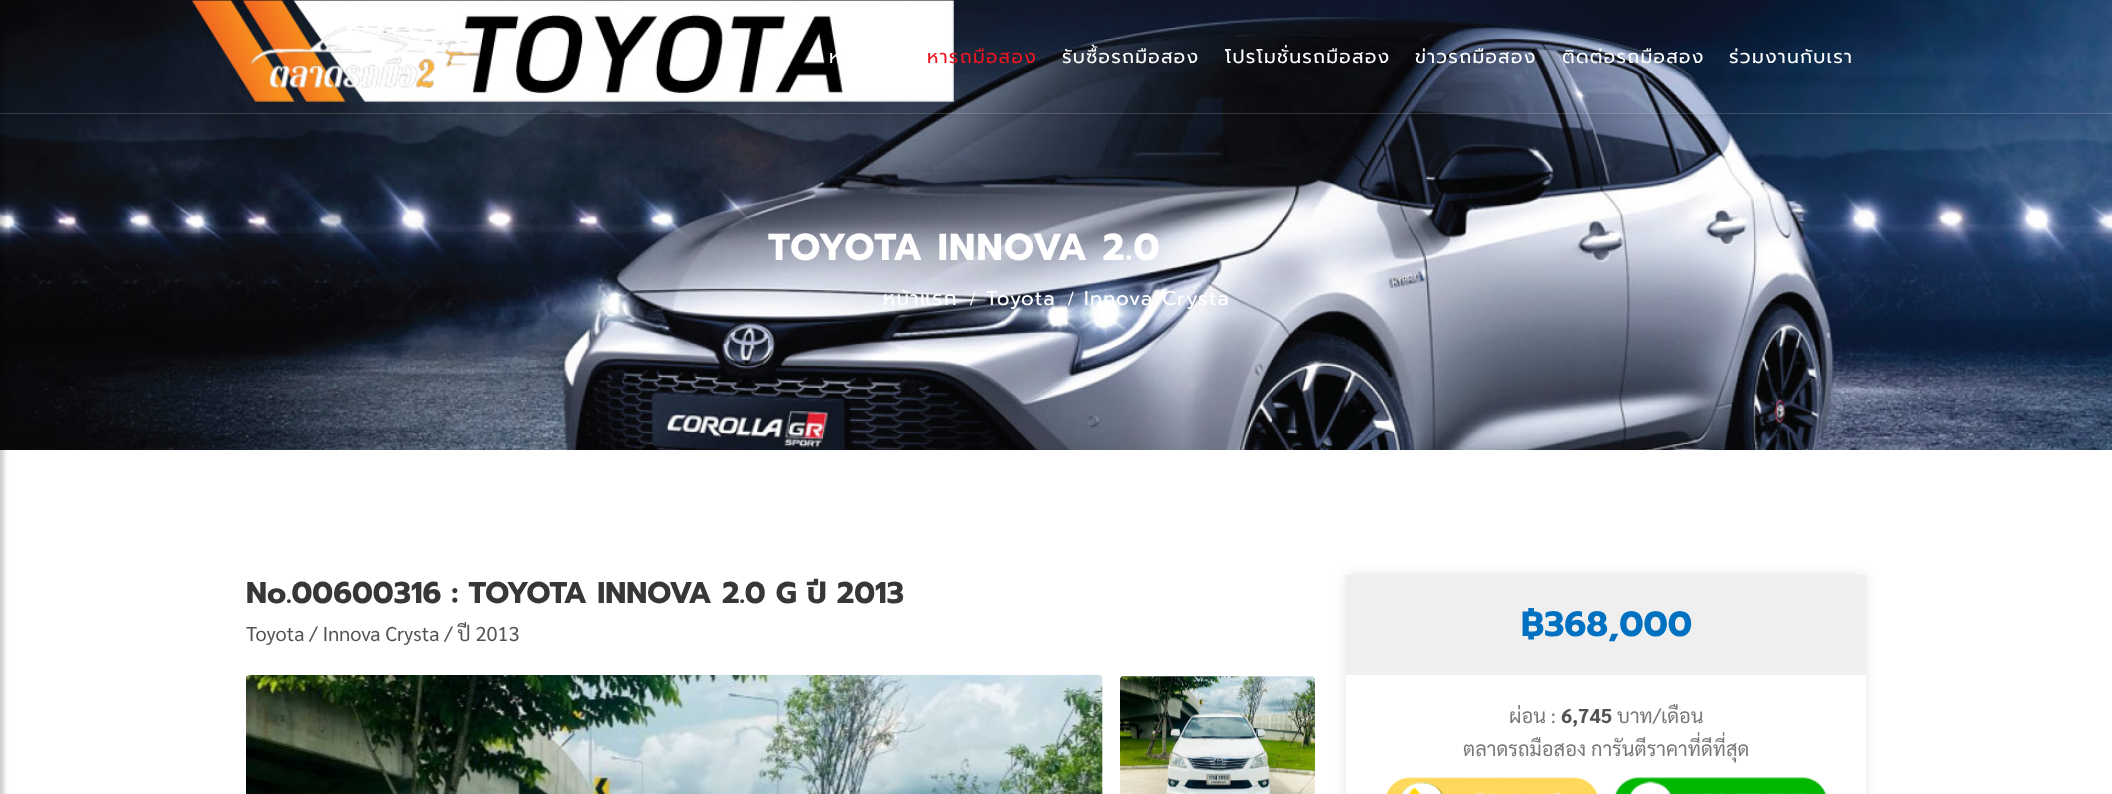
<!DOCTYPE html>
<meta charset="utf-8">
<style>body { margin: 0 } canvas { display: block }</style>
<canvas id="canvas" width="2112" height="794"></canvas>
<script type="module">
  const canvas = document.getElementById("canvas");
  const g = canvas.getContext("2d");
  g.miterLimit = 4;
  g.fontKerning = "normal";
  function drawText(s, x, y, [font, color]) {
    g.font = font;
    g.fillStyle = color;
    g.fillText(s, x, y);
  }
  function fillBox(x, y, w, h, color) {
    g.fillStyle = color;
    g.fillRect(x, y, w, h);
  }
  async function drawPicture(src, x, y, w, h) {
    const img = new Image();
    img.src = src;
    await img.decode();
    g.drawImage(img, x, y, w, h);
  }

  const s1 = ["18.75px Prompt", "#FFFFFF"];
  const s2 = ["18.75px Prompt", "#F0151F"];
  const s3 = ["bold 37.5px Prompt", "#FFFFFF"];
  const s4 = ["20px Prompt", "#FFFFFF"];
  const s5 = ["bold 20px Liberation Serif", "#FFFFFF"];
  const s6 = ["bold 30px Prompt", "#383737"];
  const s7 = ["20px Sarabun", "#535353"];
  const s8 = ["bold 35px Prompt", "#0070C0"];
  const s9 = ["20px Sarabun", "#787878"];
  const s10 = ["bold 20px Sarabun", "#535353"];

  fillBox(0, 0, 2112, 794, "#FFFFFF");
  await drawPicture("pic2.png", 0, 0, 2112, 450);
  g.save();
  g.beginPath();
  g.rect(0, 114, 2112, 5);
  g.clip();
  g.fillStyle = "rgba(0, 0, 0, 0.12)";
  g.filter = "blur(5px)";
  g.beginPath();
  g.rect(0, 0, 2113, 114);
  g.fill();
  g.filter = "none";
  g.restore();
  fillBox(0, 113, 2112, 1, "rgba(220, 220, 220, 0.2)");
  g.fillStyle = "rgba(0, 0, 0, 0.2)";
  g.filter = "blur(2px)";
  g.beginPath();
  g.rect(-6, 4, 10, 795);
  g.fill();
  g.filter = "none";
  await drawPicture("pic1.png", 250, 26, 232, 62);
  g.letterSpacing = "1.25px";
  drawText("ห", 829, 63, s1);
  drawText("หารถมือสอง", 927, 63, s2);
  drawText("รับซื้อรถมือสอง", 1062, 63, s1);
  drawText("โปรโมชั่นรถมือสอง", 1225, 63, s1);
  drawText("ข่าวรถมือสอง", 1415, 63, s1);
  drawText("ติดต่อรถมือสอง", 1562, 63, s1);
  drawText("ร่วมงานกับเรา", 1729, 63, s1);
  drawText("TOYOTA INNOVA 2.0", 768, 260, s3);
  drawText("หน้าแรก", 883, 305, s4);
  drawText("/", 970, 305, s5);
  drawText("Toyota", 986, 305, s4);
  drawText("/", 1068, 305, s5);
  drawText("Innova Crysta", 1084, 305, s4);
  g.letterSpacing = "0px";
  drawText("No.00600316 : TOYOTA INNOVA 2.0 G ปี 2013", 246, 603, s6);
  drawText("Toyota / Innova Crysta / ปี 2013", 246, 641, s7);
  await drawPicture("pic3.png", 246, 675, 857, 119);
  await drawPicture("pic4.png", 1120, 676, 195, 118);
  g.fillStyle = "rgba(0, 0, 0, 0.1)";
  g.filter = "blur(6px)";
  g.beginPath();
  g.rect(1346, 575, 520, 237);
  g.fill();
  g.filter = "none";
  fillBox(1346, 675, 520, 119, "#FFFFFF");
  fillBox(1346, 575, 520, 100, "#EFEFEF");
  drawText("฿368,000", 1521, 636, s8);
  drawText("ผ่อน :", 1509, 723, s9);
  drawText("6,745", 1561, 723, s10);
  drawText("บาท/เดือน", 1617, 723, s9);
  drawText("ตลาดรถมือสอง การันตีราคาที่ดีที่สุด", 1463, 756, s9);
  await drawPicture("pic5.png", 1386, 777, 212, 17);
  await drawPicture("pic6.png", 1614, 777, 213, 17);
</script>
